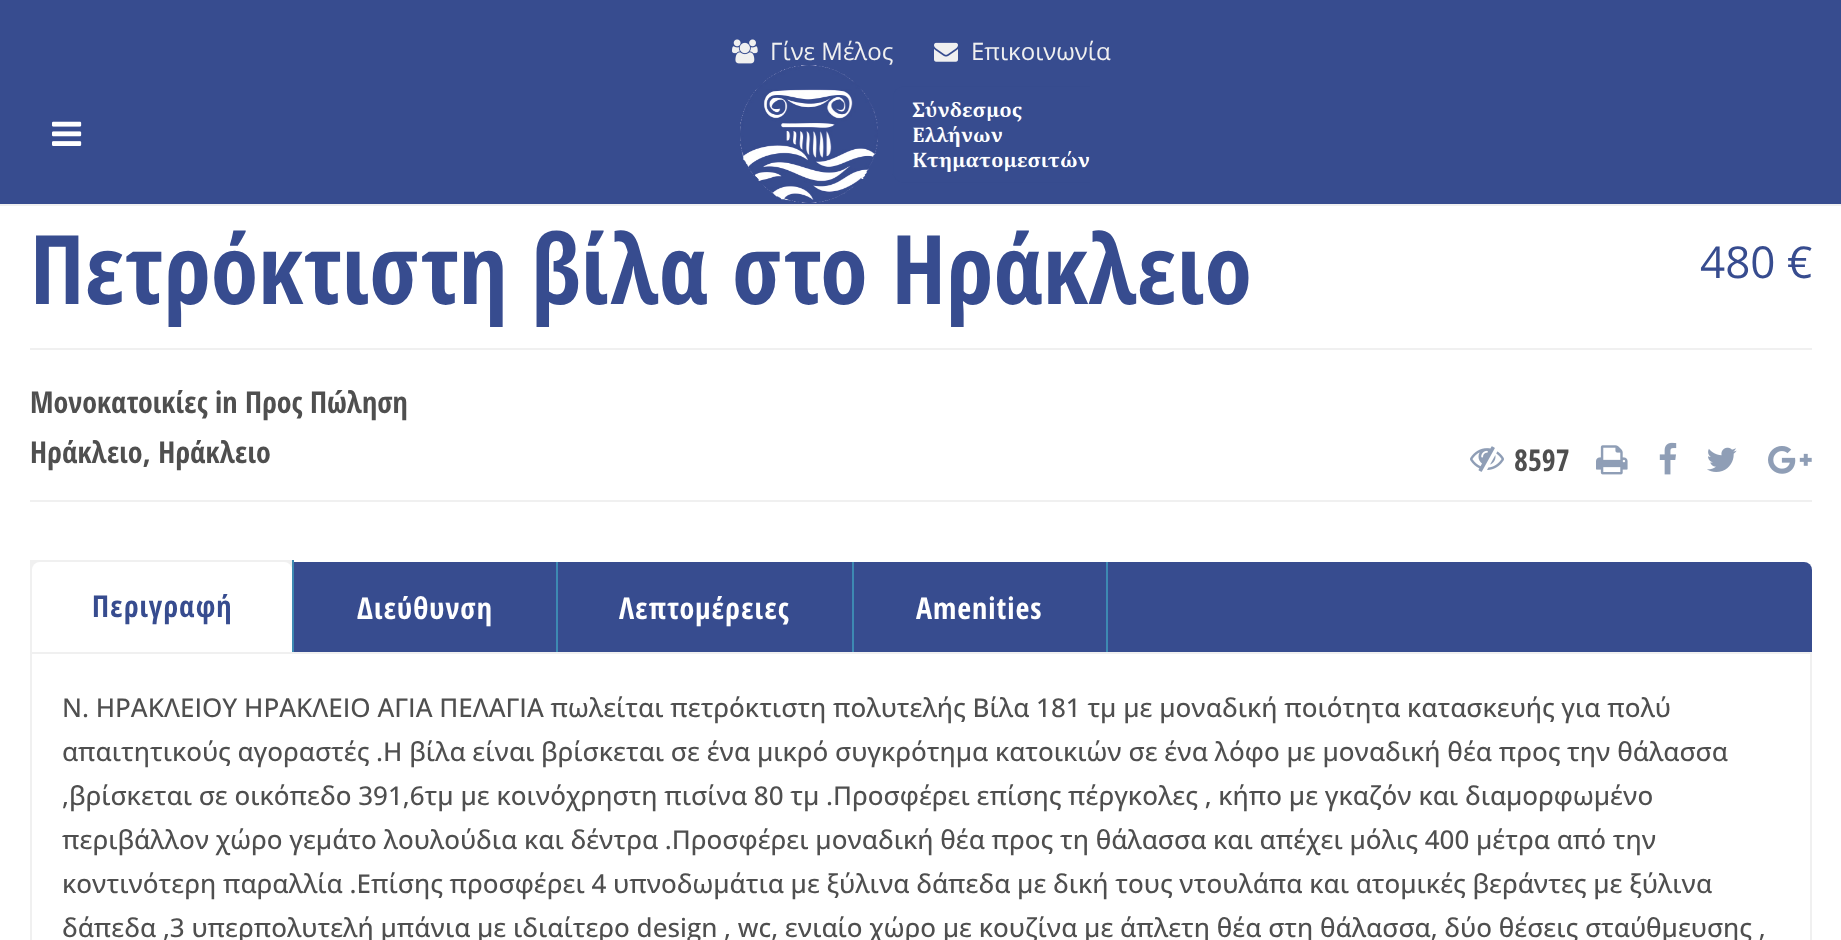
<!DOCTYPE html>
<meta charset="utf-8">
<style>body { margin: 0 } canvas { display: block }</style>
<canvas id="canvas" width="1841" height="940"></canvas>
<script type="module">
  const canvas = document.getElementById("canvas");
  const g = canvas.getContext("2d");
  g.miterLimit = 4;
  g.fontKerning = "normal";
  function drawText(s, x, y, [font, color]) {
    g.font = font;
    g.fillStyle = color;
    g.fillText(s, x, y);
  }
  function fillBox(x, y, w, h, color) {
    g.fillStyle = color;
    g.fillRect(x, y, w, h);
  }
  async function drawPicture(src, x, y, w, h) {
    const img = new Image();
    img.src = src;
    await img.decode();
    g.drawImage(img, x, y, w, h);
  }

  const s1 = ["24px Open Sans", "#F0F0F0"];
  const s2 = ["bold 96px Open Sans Condensed", "#374C8F"];
  const s3 = ["44px Open Sans", "#374C8F"];
  const s4 = ["bold 30px Open Sans Condensed", "#4F4F4F"];
  const s5 = ["bold 30px Open Sans Condensed", "#374C8F"];
  const s6 = ["bold 30px Open Sans Condensed", "#FFFFFF"];
  const s7 = ["500 26px Open Sans", "#4F4F4F"];

  fillBox(0, 0, 1841, 940, "#FFFFFF");
  fillBox(0, 204, 1841, 2, "#F0F0F0");
  fillBox(0, 0, 1841, 204, "#374C8F");
  await drawPicture("pic1.png", 52, 121, 30, 25);
  await drawPicture("pic2.png", 740, 65, 350, 138);
  await drawPicture("pic3.png", 732, 39, 26, 25);
  drawText("Γίνε Μέλος", 770, 60, s1);
  await drawPicture("pic4.png", 934, 42, 24, 20);
  drawText("Επικοινωνία", 971, 60, s1);
  drawText("Πετρόκτιστη βίλα στο Ηράκλειο", 30, 304, s2);
  drawText("480 €", 1700, 278, s3);
  fillBox(30, 348, 1782, 2, "#F0F0F0");
  fillBox(30, 500, 1782, 2, "#F0F0F0");
  drawText("Μονοκατοικίες in Προς Πώληση", 30, 413, s4);
  drawText("Ηράκλειο, Ηράκλειο", 30, 463, s4);
  await drawPicture("pic5.png", 1470, 446, 34, 26);
  drawText("8597", 1514, 471, s4);
  await drawPicture("pic6.png", 1596, 445, 32, 30);
  await drawPicture("pic7.png", 1659, 442, 18, 33);
  await drawPicture("pic8.png", 1707, 447, 30, 25);
  await drawPicture("pic9.png", 1768, 446, 44, 28);
  g.fillStyle = "#374C8F";
  g.beginPath();
  g.roundRect(30, 562, 1782, 90, [8, 8, 0, 0]);
  g.fill();
  fillBox(30, 560, 262, 92, "#F0F0F0");
  fillBox(292, 560, 2, 92, "#3D89B2");
  g.fillStyle = "#FFFFFF";
  g.beginPath();
  g.roundRect(32, 562, 260, 90, [8, 8, 0, 0]);
  g.fill();
  g.letterSpacing = "1px";
  drawText("Περιγραφή", 92, 617, s5);
  fillBox(556, 562, 2, 90, "#3D89B2");
  drawText("Διεύθυνση", 357, 619, s6);
  fillBox(852, 562, 2, 90, "#3D89B2");
  drawText("Λεπτομέρειες", 619, 619, s6);
  fillBox(1106, 562, 2, 90, "#3D89B2");
  drawText("Amenities", 916, 619, s6);
  g.strokeStyle = "#F0F0F0";
  g.lineWidth = 2;
  g.strokeRect(31, 653, 1780, 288);
  g.letterSpacing = "0px";
  drawText("Ν. ΗΡΑΚΛΕΙΟΥ ΗΡΑΚΛΕΙΟ ΑΓΙΑ ΠΕΛΑΓΙΑ πωλείται πετρόκτιστη πολυτελής Βίλα 181 τμ με μοναδική ποιότητα κατασκευής για πολύ", 62, 717, s7);
  drawText("απαιτητικούς αγοραστές .Η βίλα είναι βρίσκεται σε ένα μικρό συγκρότημα κατοικιών σε ένα λόφο με μοναδική θέα προς την θάλασσα", 62, 761, s7);
  drawText(",βρίσκεται σε οικόπεδο 391,6τμ με κοινόχρηστη πισίνα 80 τμ .Προσφέρει επίσης πέργκολες , κήπο με γκαζόν και διαμορφωμένο", 62, 805, s7);
  drawText("περιβάλλον χώρο γεμάτο λουλούδια και δέντρα .Προσφέρει μοναδική θέα προς τη θάλασσα και απέχει μόλις 400 μέτρα από την", 62, 849, s7);
  drawText("κοντινότερη παραλλία .Επίσης προσφέρει 4 υπνοδωμάτια με ξύλινα δάπεδα με δική τους ντουλάπα και ατομικές βεράντες με ξύλινα", 62, 893, s7);
  drawText("δάπεδα ,3 υπερπολυτελή μπάνια με ιδιαίτερο design , wc, ενιαίο χώρο με κουζίνα με άπλετη θέα στη θάλασσα, δύο θέσεις σταύθμευσης ,", 62, 937, s7);
</script>
